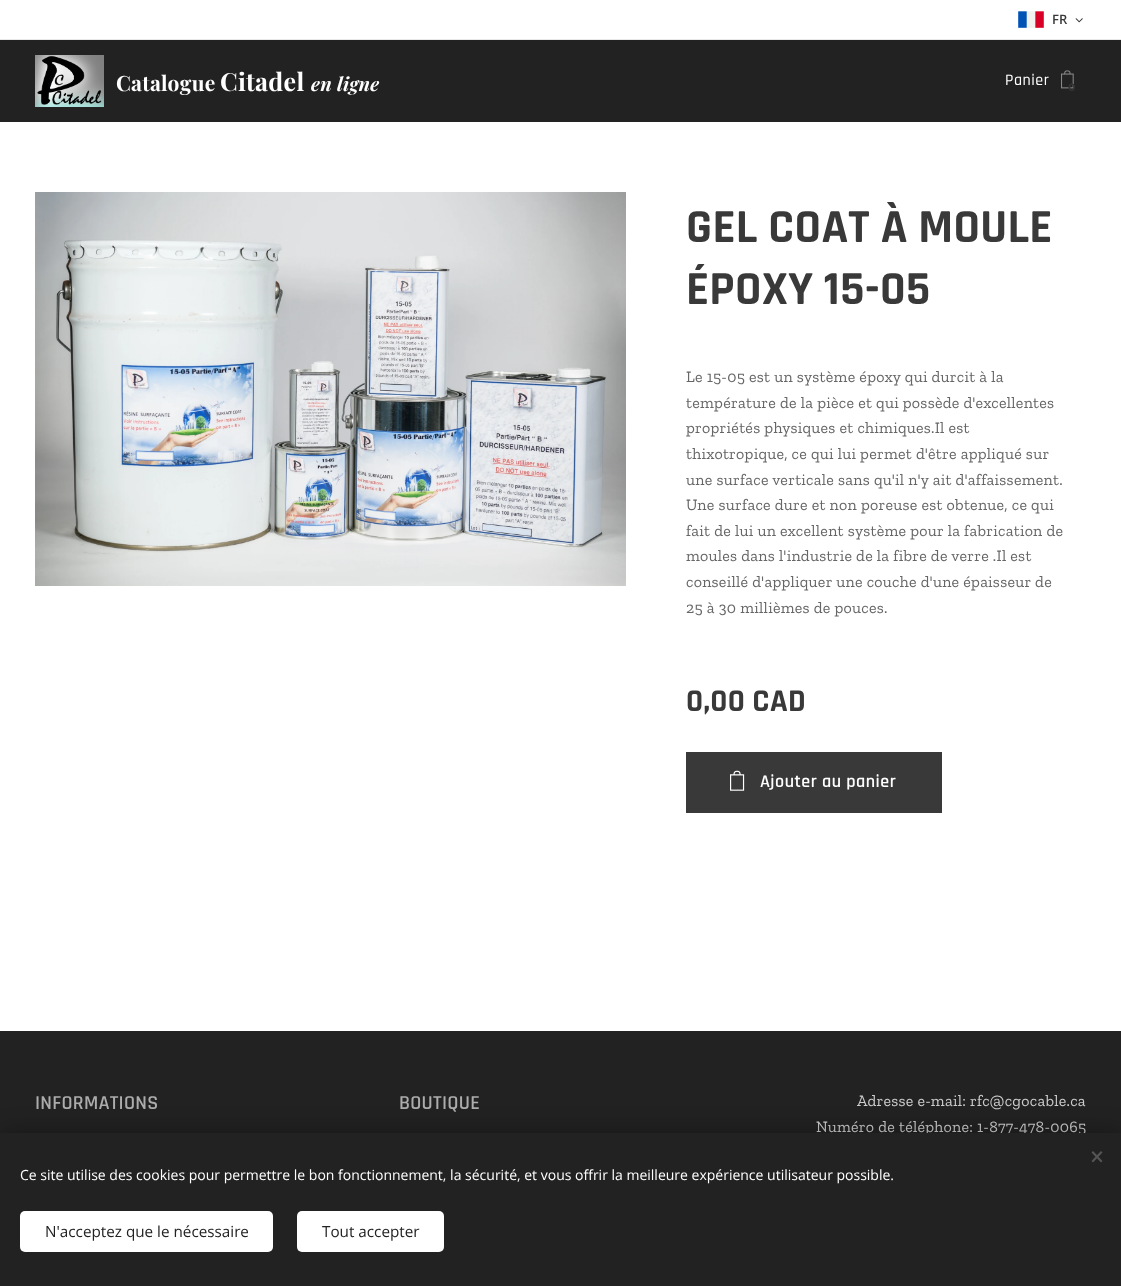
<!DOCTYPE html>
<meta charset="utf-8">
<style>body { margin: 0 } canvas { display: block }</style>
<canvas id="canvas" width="1121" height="1286"></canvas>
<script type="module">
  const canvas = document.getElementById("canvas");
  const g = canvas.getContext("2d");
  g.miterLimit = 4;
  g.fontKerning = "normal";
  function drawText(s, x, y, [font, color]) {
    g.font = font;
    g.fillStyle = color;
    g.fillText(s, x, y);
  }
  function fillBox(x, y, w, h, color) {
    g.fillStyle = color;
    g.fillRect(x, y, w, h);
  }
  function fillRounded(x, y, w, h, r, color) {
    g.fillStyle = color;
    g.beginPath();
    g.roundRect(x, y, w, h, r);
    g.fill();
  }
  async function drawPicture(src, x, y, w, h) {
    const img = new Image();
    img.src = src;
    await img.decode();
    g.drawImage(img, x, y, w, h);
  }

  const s1 = ["600 13px Open Sans", "#393939"];
  const s2 = ["bold 21px Playfair Display", "#FFFFFF"];
  const s3 = ["bold 25px Playfair Display", "#FFFFFF"];
  const s4 = ["italic bold 19px Playfair Display", "#FFFFFF"];
  const s5 = ["500 16px Rajdhani", "#FFFFFF"];
  const s6 = ["bold 11px Montserrat", "#333333"];
  const s7 = ["bold 48px Rajdhani", "#393939"];
  const s8 = ["16px Zilla Slab", "#666666"];
  const s9 = ["bold 32px Rajdhani", "#393939"];
  const s10 = ["600 18px Rajdhani", "#FFFFFF"];
  const s11 = ["600 20px Rajdhani", "#ACACAC"];
  const s12 = ["16px Zilla Slab", "#CCCCCC"];
  const s13 = ["14px Open Sans", "#FFFFFF"];
  const s14 = ["15.25px Open Sans", "#222222"];

  fillBox(0, 0, 1121, 1286, "#FFFFFF");
  await drawPicture("pic1.png", 1018, 11, 26, 17);
  drawText("FR", 1052, 24, s1);
  await drawPicture("pic2.png", 1075, 18, 8, 5);
  fillBox(0, 39, 1121, 1, "#E8E8E8");
  fillBox(0, 40, 1121, 82, "#222222");
  await drawPicture("pic3.png", 35, 55, 69, 52);
  g.letterSpacing = "0.27px";
  drawText("Catalogue", 116, 91, s2);
  drawText("Citadel", 220, 91, s3);
  drawText("en ligne", 311, 91, s4);
  g.letterSpacing = "0.5px";
  drawText("Panier", 1005, 85, s5);
  await drawPicture("pic4.png", 1061, 70, 13, 19);
  g.letterSpacing = "0px";
  drawText("0", 1068, 91, s6);
  await drawPicture("pic5.png", 35, 192, 591, 394);
  g.letterSpacing = "0.27px";
  drawText("GEL COAT À MOULE", 686, 242, s7);
  drawText("ÉPOXY 15-05", 686, 304, s7);
  drawText("Le 15-05 est un système époxy qui durcit à la", 686, 382, s8);
  drawText("température de la pièce et qui possède d'excellentes", 686, 408, s8);
  drawText("propriétés physiques et chimiques.Il est", 686, 433, s8);
  drawText("thixotropique, ce qui lui permet d'être appliqué sur", 686, 459, s8);
  drawText("une surface verticale sans qu'il n'y ait d'affaissement.", 686, 485, s8);
  drawText("Une surface dure et non poreuse est obtenue, ce qui", 686, 510, s8);
  drawText("fait de lui un excellent système pour la fabrication de", 686, 536, s8);
  drawText("moules dans l'industrie de la fibre de verre .Il est", 686, 561, s8);
  drawText("conseillé d'appliquer une couche d'une épaisseur de", 686, 587, s8);
  drawText("25 à 30 millièmes de pouces.", 686, 613, s8);
  drawText("0,00 CAD", 686, 711, s9);
  fillBox(686, 752, 256, 61, "#393939");
  await drawPicture("pic6.png", 730, 770, 15, 21);
  g.letterSpacing = "0.5px";
  drawText("Ajouter au panier", 760, 787, s10);
  fillBox(0, 1031, 1121, 102, "#222222");
  g.letterSpacing = "0.25px";
  drawText("INFORMATIONS", 35, 1109, s11);
  drawText("BOUTIQUE", 399, 1109, s11);
  g.letterSpacing = "0.27px";
  drawText("Adresse e-mail: rfc@cgocable.ca", 857, 1106, s12);
  drawText("Numéro de téléphone: 1-877-478-0065", 816, 1132, s12);
  g.fillStyle = "rgba(0, 0, 0, 0.33)";
  g.filter = "blur(12.5px)";
  g.beginPath();
  g.rect(0, 1133, 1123, 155);
  g.fill();
  g.filter = "none";
  fillBox(0, 1133, 1121, 153, "#222222");
  g.fillStyle = "#555555";
  g.beginPath();
  g.moveTo(1091.5, 1161);
  g.lineTo(1101, 1151);
  g.lineTo(1102.5, 1152.5);
  g.lineTo(1093, 1162.5);
  g.closePath();
  g.fill();
  g.beginPath();
  g.moveTo(1093, 1151);
  g.lineTo(1102.5, 1161);
  g.lineTo(1101, 1162.5);
  g.lineTo(1091.5, 1152.5);
  g.closePath();
  g.fill();
  g.letterSpacing = "0px";
  drawText("Ce site utilise des cookies pour permettre le bon fonctionnement, la sécurité, et vous offrir la meilleure expérience utilisateur possible.", 20, 1180, s13);
  fillRounded(20, 1211, 253, 41, 5, "#FFFFFF");
  drawText("N'acceptez que le nécessaire", 45, 1237, s14);
  fillRounded(297, 1211, 147, 41, 5, "#FFFFFF");
  drawText("Tout accepter", 322, 1237, s14);
</script>
